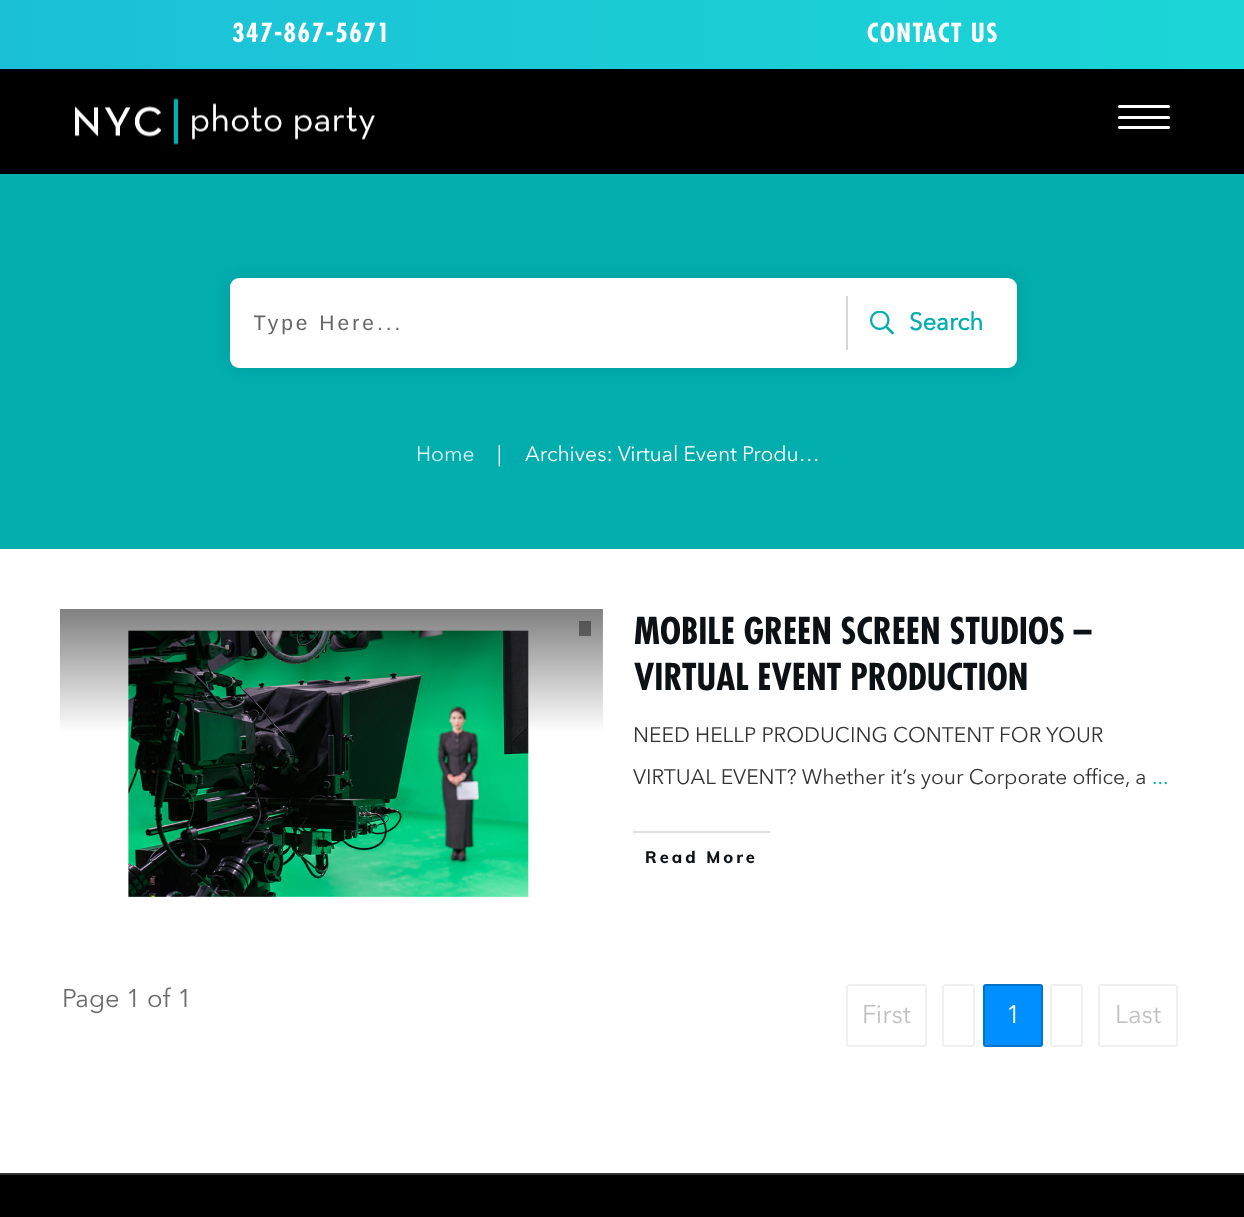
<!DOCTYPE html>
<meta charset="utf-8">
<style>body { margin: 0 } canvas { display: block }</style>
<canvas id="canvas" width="1244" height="1217"></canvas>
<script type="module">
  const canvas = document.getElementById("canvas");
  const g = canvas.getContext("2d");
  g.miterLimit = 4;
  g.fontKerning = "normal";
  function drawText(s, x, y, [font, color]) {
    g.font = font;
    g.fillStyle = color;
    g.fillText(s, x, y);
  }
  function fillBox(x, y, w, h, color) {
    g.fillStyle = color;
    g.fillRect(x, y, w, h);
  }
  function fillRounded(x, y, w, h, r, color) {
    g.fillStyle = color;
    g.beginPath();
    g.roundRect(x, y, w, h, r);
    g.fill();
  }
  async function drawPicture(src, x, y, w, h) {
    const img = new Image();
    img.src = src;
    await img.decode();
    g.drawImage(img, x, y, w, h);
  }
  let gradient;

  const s1 = ["bold 25.5px Futura", "#FFFFFF"];
  const s2 = ["21px Liberation Sans", "#666666"];
  const s3 = ["bold 24px Avenir Next", "#01ADAD"];
  const s4 = ["21px Avenir Next", "#D9F3F3"];
  const s5 = ["21px Avenir Next", "#FFFFFF"];
  const s6 = ["bold 36px Futura", "#0C1115"];
  const s7 = ["21px Avenir Next", "#333333"];
  const s8 = ["21px Avenir Next", "#01ADAD"];
  const s9 = ["800 16.5px Muli", "#0C1115"];
  const s10 = ["25.5px Avenir Next", "#6C6C6C"];
  const s11 = ["25.5px Avenir Next", "#C2C2C2"];
  const s12 = ["25.5px Avenir Next", "#FFFFFF"];

  fillBox(0, 0, 1244, 1217, "#FFFFFF");
  gradient = g.createLinearGradient(0, 35, 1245, 34);
  gradient.addColorStop(0, "#1BC0D6");
  gradient.addColorStop(1, "#1BD6D6");
  g.fillStyle = gradient;
  g.fillRect(0, 0, 1244, 69);
  g.letterSpacing = "1.5px";
  drawText("347-867-5671", 232, 42, s1);
  drawText("CONTACT US", 867, 42, s1);
  fillBox(0, 69, 1244, 105, "#000000");
  await drawPicture("pic1.png", 75, 98, 300, 47);
  fillBox(0, 174, 1244, 375, "#01ADAD");
  g.fillStyle = "rgba(0, 0, 0, 0.08)";
  g.filter = "blur(8px)";
  g.beginPath();
  g.roundRect(230, 278, 787, 90, 9);
  g.fill();
  g.filter = "none";
  fillRounded(230, 278, 787, 90, 9, "#FFFFFF");
  g.save();
  g.beginPath();
  g.rect(254, 311, 580, 24);
  g.clip();
  g.letterSpacing = "3px";
  drawText("Type Here...", 253, 330, s2);
  g.restore();
  fillBox(846, 296, 2, 54, "#D6D6D6");
  await drawPicture("pic2.png", 870, 311, 24, 24);
  g.letterSpacing = "0px";
  drawText("Search", 909, 330, s3);
  drawText("Home", 416, 461, s4);
  drawText("|", 497, 461, s5);
  drawText("Archives: Virtual Event Produ…", 525, 461, s5);
  await drawPicture("pic3.png", 60, 609, 543, 288);
  fillBox(579, 621, 12, 15, "rgba(0, 0, 0, 0.4)");
  drawText("MOBILE GREEN SCREEN STUDIOS –", 634, 644, s6);
  drawText("VIRTUAL EVENT PRODUCTION", 634, 690, s6);
  drawText("NEED HELLP PRODUCING CONTENT FOR YOUR", 633, 742, s7);
  drawText("VIRTUAL EVENT? Whether it’s your Corporate office, a", 633, 784, s7);
  drawText("...", 1152, 784, s8);
  fillBox(633, 831, 137, 2, "#E0E0E0");
  g.letterSpacing = "3px";
  drawText("Read More", 645, 863, s9);
  g.letterSpacing = "0px";
  drawText("Page 1 of 1", 62, 1007, s10);
  g.beginPath();
  g.roundRect(847, 985, 79, 61, 2);
  g.strokeStyle = "#F0F0F0";
  g.lineWidth = 2;
  g.stroke();
  drawText("First", 862, 1023, s11);
  g.beginPath();
  g.roundRect(943, 985, 31, 61, 2);
  g.stroke();
  fillRounded(983, 984, 60, 63, 3, "#008FFF");
  g.beginPath();
  g.roundRect(984, 985, 58, 61, 2);
  g.strokeStyle = "rgba(0, 0, 0, 0.2)";
  g.stroke();
  drawText("1", 1006, 1023, s12);
  g.beginPath();
  g.roundRect(1051, 985, 31, 61, 2);
  g.strokeStyle = "#F0F0F0";
  g.stroke();
  g.beginPath();
  g.roundRect(1099, 985, 78, 61, 2);
  g.stroke();
  drawText("Last", 1115, 1023, s11);
  fillBox(0, 1173, 1244, 2, "#333333");
  fillBox(0, 1175, 1244, 42, "#000000");
  fillRounded(1118, 105, 52, 3, 1.5, "#FFFFFF");
  fillRounded(1118, 116, 52, 3, 1.5, "#FFFFFF");
  fillRounded(1118, 126, 52, 3, 1.5, "#FFFFFF");
</script>
